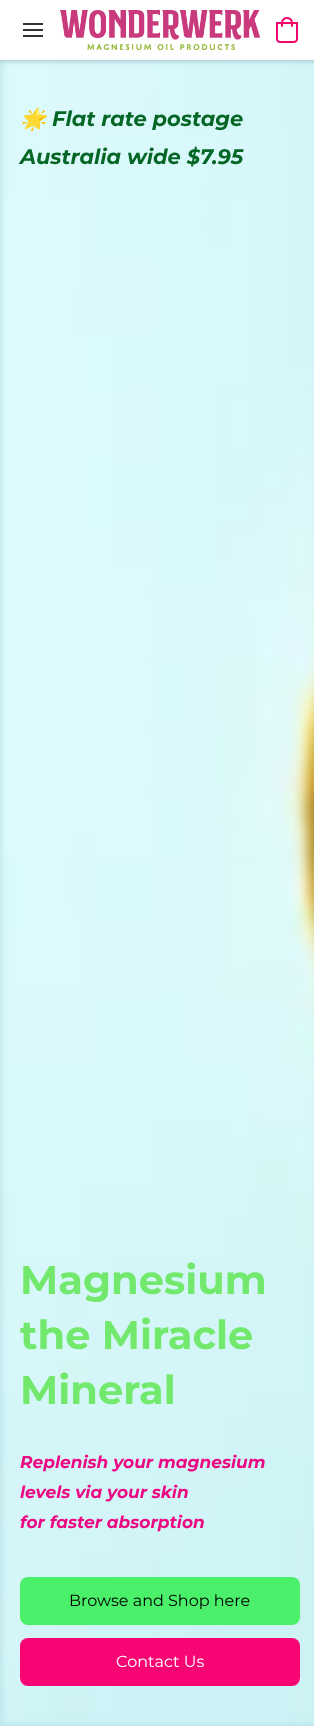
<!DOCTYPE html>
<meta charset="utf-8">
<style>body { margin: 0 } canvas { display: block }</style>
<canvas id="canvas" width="314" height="1726"></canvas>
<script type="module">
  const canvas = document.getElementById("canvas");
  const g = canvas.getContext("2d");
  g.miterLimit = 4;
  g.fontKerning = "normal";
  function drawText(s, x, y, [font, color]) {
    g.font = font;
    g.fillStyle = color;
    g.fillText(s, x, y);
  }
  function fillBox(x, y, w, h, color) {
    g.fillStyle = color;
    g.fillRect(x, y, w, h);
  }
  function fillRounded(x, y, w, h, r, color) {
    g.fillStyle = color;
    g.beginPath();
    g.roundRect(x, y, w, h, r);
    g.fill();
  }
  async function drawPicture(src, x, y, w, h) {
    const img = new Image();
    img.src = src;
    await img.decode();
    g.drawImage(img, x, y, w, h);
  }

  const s1 = ["italic bold 21px Noto Color Emoji", "#046624"];
  const s2 = ["italic 100 21px Montserrat", "#046624"];
  const s3 = ["100 40px Montserrat", "#72E96D"];
  const s4 = ["italic 100 17px Montserrat", "#EC0883"];
  const s5 = ["100 16px 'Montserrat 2'", "#000000"];
  const s6 = ["100 16px 'Montserrat 2'", "#FFFFFF"];

  fillBox(0, 0, 314, 1726, "#B1DEE3");
  await drawPicture("pic3.png", 0, 60, 314, 1666);
  g.fillStyle = "rgba(0, 0, 0, 0.09)";
  g.filter = "blur(1.5px)";
  g.beginPath();
  g.rect(-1, 0, 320, 62);
  g.fill();
  g.filter = "none";
  fillBox(0, 0, 314, 60, "#FFFFFF");
  fillBox(23, 29, 20, 2, "#333333");
  fillBox(23, 23, 20, 2, "#333333");
  fillBox(23, 35, 20, 2, "#333333");
  await drawPicture("pic1.png", 60, 10, 200, 40);
  await drawPicture("pic2.png", 276, 17, 22, 26);
  drawText("🌟", 20, 126, s1);
  drawText("Flat rate postage", 52, 126, s2);
  drawText("Australia wide $7.95", 20, 164, s2);
  drawText("Magnesium", 20, 1294, s3);
  drawText("the Miracle", 20, 1349, s3);
  drawText("Mineral", 20, 1404, s3);
  drawText("Replenish your magnesium", 20, 1468, s4);
  drawText("levels via your skin", 20, 1498, s4);
  drawText("for faster absorption", 20, 1528, s4);
  fillRounded(20, 1577, 280, 48, 8, "#4BF06A");
  drawText("Browse and Shop here", 69, 1606, s5);
  fillRounded(20, 1638, 280, 48, 8, "#F70673");
  drawText("Contact Us", 116, 1667, s6);
</script>
